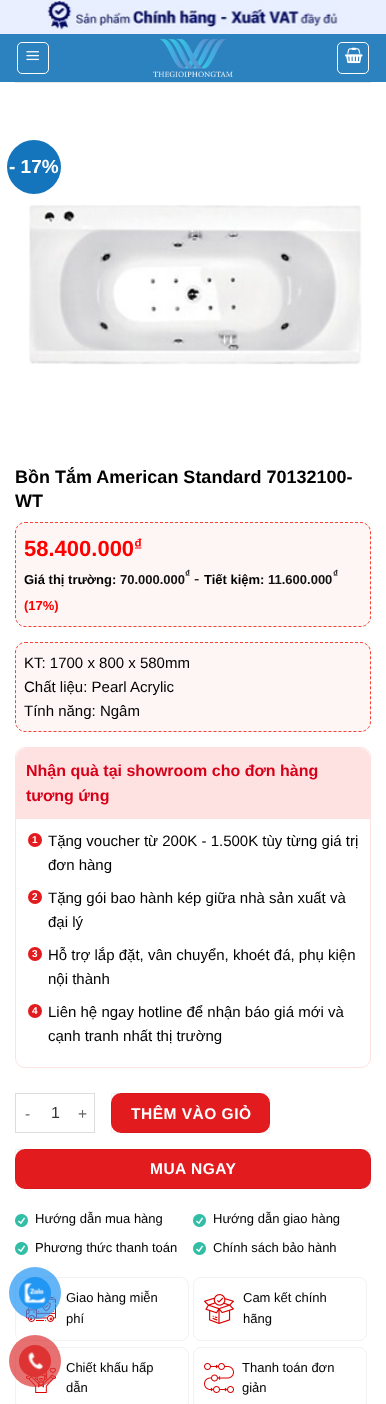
<!DOCTYPE html>
<meta charset="utf-8">
<style>body { margin: 0 } canvas { display: block }</style>
<canvas id="canvas" width="386" height="1404"></canvas>
<script type="module">
  const canvas = document.getElementById("canvas");
  const g = canvas.getContext("2d");
  g.miterLimit = 4;
  g.fontKerning = "normal";
  function drawText(s, x, y, [font, color]) {
    g.font = font;
    g.fillStyle = color;
    g.fillText(s, x, y);
  }
  function fillBox(x, y, w, h, color) {
    g.fillStyle = color;
    g.fillRect(x, y, w, h);
  }
  function fillRounded(x, y, w, h, r, color) {
    g.fillStyle = color;
    g.beginPath();
    g.roundRect(x, y, w, h, r);
    g.fill();
  }
  async function drawPicture(src, x, y, w, h) {
    const img = new Image();
    img.src = src;
    await img.decode();
    g.drawImage(img, x, y, w, h);
  }

  const s1 = ["bold 19px Liberation Sans", "#FFFFFF"];
  const s2 = ["bold 18px Liberation Sans", "#000000"];
  const s3 = ["bold 22px Liberation Sans", "#FF0000"];
  const s4 = ["bold 16px Liberation Sans", "#FF0000"];
  const s5 = ["bold 13px Liberation Sans", "#000000"];
  const s6 = ["bold 10px Liberation Sans", "#111111"];
  const s7 = ["bold 13px Liberation Sans", "#111111"];
  const s8 = ["16px Liberation Sans", "#000000"];
  const s9 = ["bold 13px Liberation Sans", "#FF0000"];
  const s10 = ["15px Liberation Sans", "#000000"];
  const s11 = ["bold 16px Liberation Sans", "#D70018"];
  const s12 = ["bold 10px Liberation Sans", "#FFFFFF"];
  const s13 = ["15.5px Liberation Sans", "#666666"];
  const s14 = ["16px Liberation Sans", "#333333"];
  const s15 = ["bold 15.5px Liberation Sans", "#FFFFFF"];
  const s16 = ["13px Liberation Sans", "#000000"];

  fillBox(0, 0, 386, 1404, "#FFFFFF");
  fillBox(0, 0, 386, 34, "#E9EFFF");
  await drawPicture("pic1.png", 47, 0, 291, 30);
  fillBox(0, 34, 386, 48, "#2C81BF");
  g.beginPath();
  g.roundRect(17.5, 42.5, 31, 31, 4.5);
  g.strokeStyle = "#FFFFFF";
  g.stroke();
  await drawPicture("pic2.png", 26, 51, 13, 10);
  await drawPicture("pic3.png", 152, 39, 81, 38);
  g.beginPath();
  g.roundRect(337.5, 42.5, 31, 31, 4.5);
  g.stroke();
  await drawPicture("pic4.png", 345, 47, 18, 17);
  fillBox(15, 82, 356, 1, "#E6E6E6");
  g.fillStyle = "#1475BC";
  g.beginPath();
  g.arc(34, 167, 27, 0, Math.PI * 2);
  g.fill();
  drawText("- 17%", 9, 173, s1);
  await drawPicture("pic5.png", 29, 205, 333, 160);
  drawText("Bồn Tắm American Standard 70132100-", 15, 483, s2);
  drawText("WT", 15, 507, s2);
  fillRounded(15, 522, 356, 105, 10, "#FEF6F5");
  g.beginPath();
  g.moveTo(25, 522.5);
  g.lineTo(361, 522.5);
  g.bezierCurveTo(366, 522.5, 370.5, 527, 370.5, 532);
  g.lineTo(370.5, 617);
  g.bezierCurveTo(370.5, 622, 366, 626.5, 361, 626.5);
  g.lineTo(25, 626.5);
  g.bezierCurveTo(20, 626.5, 15.5, 622, 15.5, 617);
  g.lineTo(15.5, 532);
  g.bezierCurveTo(15.5, 527, 20, 522.5, 25, 522.5);
  g.closePath();
  g.strokeStyle = "#F44336";
  g.setLineDash([3, 2]);
  g.stroke();
  drawText("58.400.000", 24, 556, s3);
  drawText("₫", 134, 550, s4);
  drawText("Giá thị trường:", 24, 584, s5);
  drawText("₫", 185, 577, s6);
  drawText("70.000.000", 120, 584, s7);
  drawText("-", 194, 584, s8);
  drawText("Tiết kiệm:", 204, 584, s5);
  drawText("₫", 333, 577, s6);
  drawText("11.600.000", 268, 584, s7);
  drawText("(17%)", 24, 610, s9);
  fillRounded(15, 642, 356, 90, 10, "#FEF6F5");
  g.beginPath();
  g.moveTo(25, 642.5);
  g.lineTo(361, 642.5);
  g.bezierCurveTo(366, 642.5, 370.5, 647, 370.5, 652);
  g.lineTo(370.5, 722);
  g.bezierCurveTo(370.5, 727, 366, 731.5, 361, 731.5);
  g.lineTo(25, 731.5);
  g.bezierCurveTo(20, 731.5, 15.5, 727, 15.5, 722);
  g.lineTo(15.5, 652);
  g.bezierCurveTo(15.5, 647, 20, 642.5, 25, 642.5);
  g.closePath();
  g.stroke();
  drawText("KT: 1700 x 800 x 580mm", 24, 668, s10);
  drawText("Chất liệu: Pearl Acrylic", 24, 692, s10);
  drawText("Tính năng: Ngâm", 24, 716, s10);
  g.beginPath();
  g.roundRect(15.5, 747.5, 355, 320, 9.5);
  g.strokeStyle = "#FEE2E2";
  g.setLineDash([]);
  g.stroke();
  g.save();
  g.beginPath();
  g.roundRect(16, 748, 354, 319, 9);
  g.clip();
  g.fillStyle = "#FEE2E2";
  g.beginPath();
  g.roundRect(16, 748, 354, 71, [10, 10, 0, 0]);
  g.fill();
  g.restore();
  drawText("Nhận quà tại showroom cho đơn hàng", 26, 776, s11);
  drawText("tương ứng", 26, 801, s11);
  g.fillStyle = "#E11B1E";
  g.beginPath();
  g.arc(35, 840, 7, 0, Math.PI * 2);
  g.fill();
  drawText("1", 32, 843, s12);
  drawText("Tặng voucher từ 200K - 1.500K tùy từng giá trị", 48, 846, s10);
  drawText("đơn hàng", 48, 870, s10);
  g.fillStyle = "#E11B1E";
  g.beginPath();
  g.arc(35, 897, 7, 0, Math.PI * 2);
  g.fill();
  drawText("2", 32, 900, s12);
  drawText("Tặng gói bao hành kép giữa nhà sản xuất và", 48, 903, s10);
  drawText("đại lý", 48, 927, s10);
  g.fillStyle = "#E11B1E";
  g.beginPath();
  g.arc(35, 954, 7, 0, Math.PI * 2);
  g.fill();
  drawText("3", 32, 957, s12);
  drawText("Hỗ trợ lắp đặt, vân chuyển, khoét đá, phụ kiện", 48, 960, s10);
  drawText("nội thành", 48, 984, s10);
  g.fillStyle = "#E11B1E";
  g.beginPath();
  g.arc(35, 1011, 7, 0, Math.PI * 2);
  g.fill();
  drawText("4", 32, 1014, s12);
  drawText("Liên hệ ngay hotline để nhận báo giá mới và", 48, 1017, s10);
  drawText("cạnh tranh nhất thị trường", 48, 1041, s10);
  fillBox(15, 1093, 80, 1, "#DDDDDD");
  fillBox(15, 1132, 56, 1, "#DDDDDD");
  fillBox(15, 1093, 1, 40, "#DDDDDD");
  g.letterSpacing = "0.5px";
  drawText("-", 25, 1119, s13);
  g.letterSpacing = "0px";
  drawText("1", 51, 1118, s14);
  fillBox(94, 1093, 1, 40, "#DDDDDD");
  fillBox(71, 1132, 24, 1, "#DDDDDD");
  g.letterSpacing = "0.5px";
  drawText("+", 78, 1119, s13);
  fillRounded(111, 1093, 159, 40, 10, "#E11B1E");
  g.strokeStyle = "rgba(0, 0, 0, 0.05)";
  g.strokeRect(111.5, 1093.5, 158, 39);
  drawText("THÊM VÀO GIỎ", 131, 1119, s15);
  fillRounded(15, 1149, 356, 40, 10, "#E11B1E");
  g.strokeRect(15.5, 1149.5, 355, 39);
  drawText("MUA NGAY", 150, 1174, s15);
  await drawPicture("pic6.png", 15, 1214, 13, 13);
  g.letterSpacing = "0px";
  drawText("Hướng dẫn mua hàng", 35, 1223, s16);
  await drawPicture("pic6.png", 193, 1214, 13, 13);
  drawText("Hướng dẫn giao hàng", 213, 1223, s16);
  await drawPicture("pic6.png", 15, 1242, 13, 13);
  drawText("Phương thức thanh toán", 35, 1252, s16);
  await drawPicture("pic6.png", 193, 1242, 13, 13);
  drawText("Chính sách bảo hành", 213, 1252, s16);
  g.beginPath();
  g.roundRect(15.5, 1277.5, 173, 63, 7.5);
  g.strokeStyle = "#F2F2F2";
  g.stroke();
  await drawPicture("pic7.png", 26, 1296, 30, 26);
  drawText("Giao hàng miễn", 66, 1302, s16);
  drawText("phí", 66, 1323, s16);
  g.beginPath();
  g.roundRect(193.5, 1277.5, 173, 63, 7.5);
  g.stroke();
  await drawPicture("pic8.png", 204, 1294, 30, 30);
  drawText("Cam kết chính", 243, 1302, s16);
  drawText("hãng", 243, 1323, s16);
  g.beginPath();
  g.roundRect(15.5, 1347.5, 173, 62, 7.5);
  g.stroke();
  await drawPicture("pic9.png", 26, 1367, 30, 26);
  drawText("Chiết khấu hấp", 66, 1372, s16);
  drawText("dẫn", 66, 1392, s16);
  g.beginPath();
  g.roundRect(193.5, 1347.5, 173, 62, 7.5);
  g.stroke();
  await drawPicture("pic10.png", 204, 1363, 30, 30);
  drawText("Thanh toán đơn", 242, 1372, s16);
  drawText("giản", 242, 1392, s16);
  g.fillStyle = "rgba(33, 150, 243, 0.7)";
  g.beginPath();
  g.arc(35, 1293, 26, 0, Math.PI * 2);
  g.fill();
  g.fillStyle = "#2196F3";
  g.beginPath();
  g.arc(35, 1293, 16, 0, Math.PI * 2);
  g.fill();
  await drawPicture("pic11.png", 24, 1283, 22, 21);
  g.fillStyle = "rgba(221, 51, 51, 0.7)";
  g.beginPath();
  g.arc(35, 1361, 26, 0, Math.PI * 2);
  g.fill();
  g.fillStyle = "#DD3333";
  g.beginPath();
  g.arc(35, 1361, 16, 0, Math.PI * 2);
  g.fill();
  await drawPicture("pic12.png", 27, 1352, 16, 18);
</script>
